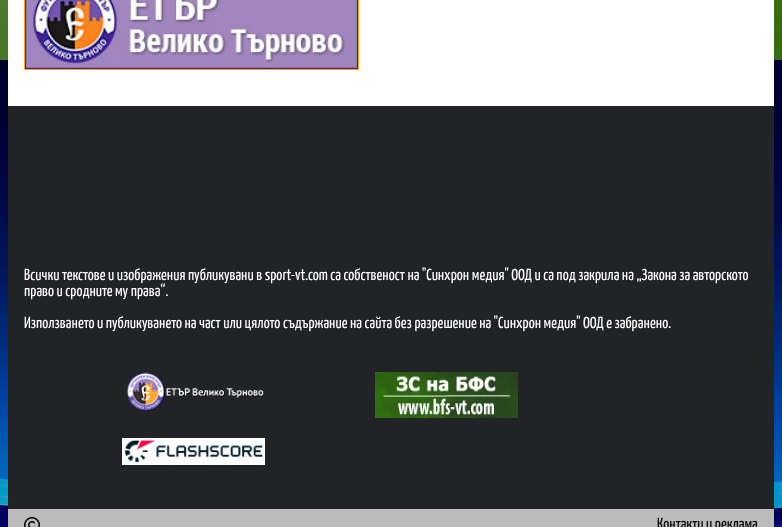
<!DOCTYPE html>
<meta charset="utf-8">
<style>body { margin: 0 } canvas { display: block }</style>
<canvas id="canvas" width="782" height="527"></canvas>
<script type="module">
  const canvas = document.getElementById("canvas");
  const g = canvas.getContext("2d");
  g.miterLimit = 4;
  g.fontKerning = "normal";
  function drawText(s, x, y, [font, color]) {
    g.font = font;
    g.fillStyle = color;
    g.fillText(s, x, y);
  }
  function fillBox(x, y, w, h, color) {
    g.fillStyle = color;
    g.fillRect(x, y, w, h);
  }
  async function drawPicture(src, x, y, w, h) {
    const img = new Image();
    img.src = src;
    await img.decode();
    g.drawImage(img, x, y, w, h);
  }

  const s1 = ["16px Yanone Kaffeesatz", "#FFFFFF"];
  const s2 = ["16px Yanone Kaffeesatz", "#000000"];

  fillBox(0, 0, 782, 527, "#FFFFFF");
  await drawPicture("pic1.png", 0, 0, 782, 527);
  fillBox(8, 0, 766, 106, "#FFFFFF");
  g.strokeStyle = "#FFA500";
  g.strokeRect(24.5, -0.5, 334, 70);
  await drawPicture("pic2.png", 25, 0, 333, 69);
  fillBox(8, 106, 766, 403, "#212327");
  drawText("Всички текстове и изображения публикувани в sport-vt.com са собственост на \"Синхрон медия\" ООД и са под закрила на „Закона за авторското", 24, 280, s1);
  drawText("право и сродните му права“.", 24, 296, s1);
  drawText("Използването и публикуването на част или цялото съдържание на сайта без разрешение на \"Синхрон медия\" ООД е забранено.", 24, 328, s1);
  await drawPicture("pic3.png", 126, 372, 138, 40);
  await drawPicture("pic4.png", 375, 372, 143, 46);
  await drawPicture("pic5.png", 122, 438, 143, 27);
  fillBox(8, 509, 766, 18, "#BBBBBB");
  await drawPicture("pic6.png", 24, 517, 16, 10);
  drawText("Контакти и реклама", 657, 529, s2);
</script>
